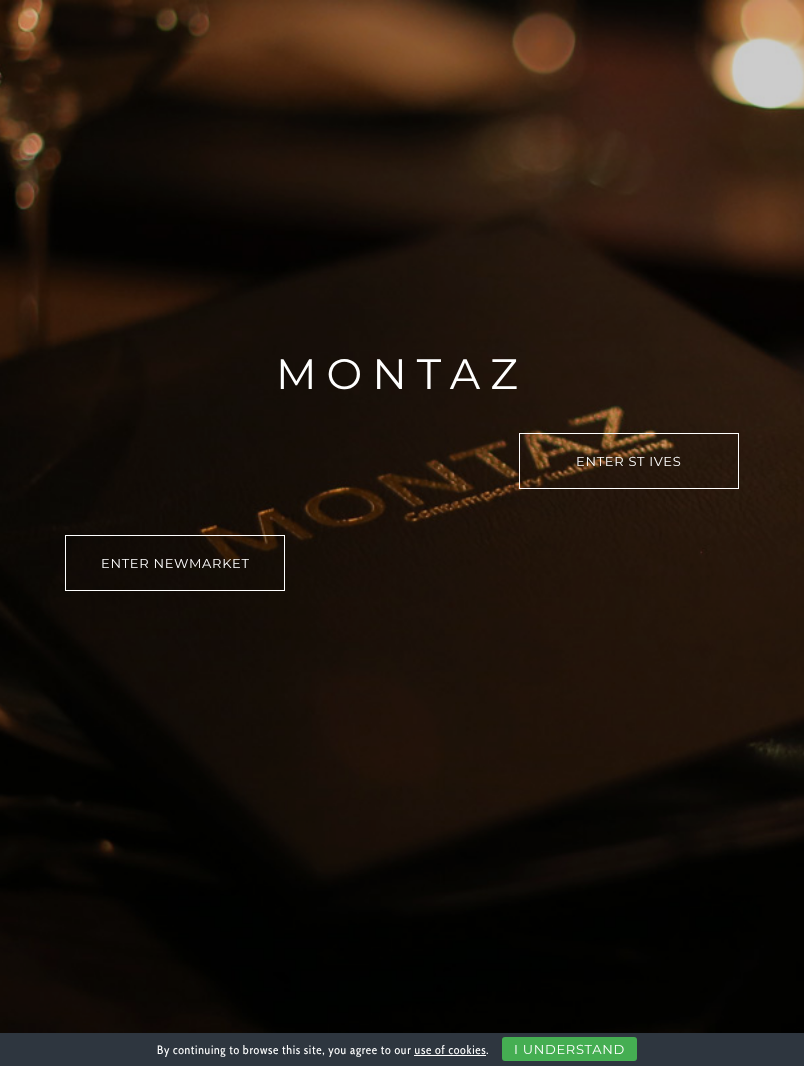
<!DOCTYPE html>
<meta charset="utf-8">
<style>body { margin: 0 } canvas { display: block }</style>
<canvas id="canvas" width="804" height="1066"></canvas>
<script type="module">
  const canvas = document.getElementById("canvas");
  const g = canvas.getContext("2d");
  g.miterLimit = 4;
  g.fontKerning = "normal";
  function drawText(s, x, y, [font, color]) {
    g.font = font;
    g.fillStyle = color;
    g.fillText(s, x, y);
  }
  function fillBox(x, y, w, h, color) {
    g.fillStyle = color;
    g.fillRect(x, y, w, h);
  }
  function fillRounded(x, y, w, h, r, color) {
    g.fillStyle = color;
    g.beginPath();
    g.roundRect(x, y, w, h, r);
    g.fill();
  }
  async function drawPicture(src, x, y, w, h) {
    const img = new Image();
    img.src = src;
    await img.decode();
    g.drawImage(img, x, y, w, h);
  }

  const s1 = ["42.5px Montserrat", "#FFFFFF"];
  const s2 = ["13px Montserrat", "#FFFFFF"];
  const s3 = ["12px Cabin Condensed", "#FFFFFF"];

  fillBox(0, 0, 804, 1066, "#FFFFFF");
  await drawPicture("pic1.png", 0, 0, 804, 1033);
  g.letterSpacing = "10px";
  drawText("MONTAZ", 276, 389, s1);
  g.strokeStyle = "#FFFFFF";
  g.strokeRect(519.5, 433.5, 219, 55);
  g.letterSpacing = "0.7px";
  drawText("ENTER ST IVES", 576, 466, s2);
  g.strokeRect(65.5, 535.5, 219, 55);
  drawText("ENTER NEWMARKET", 101, 568, s2);
  fillBox(0, 1033, 804, 33, "#2E363F");
  drawText("By continuing to browse this site, you agree to our use of cookies.", 157, 1054, s3);
  fillRounded(502, 1037, 135, 24, 3, "#45AE52");
  drawText("I UNDERSTAND", 514, 1054, s2);
  fillBox(414, 1055, 72, 1, "#FFFFFF");
</script>
